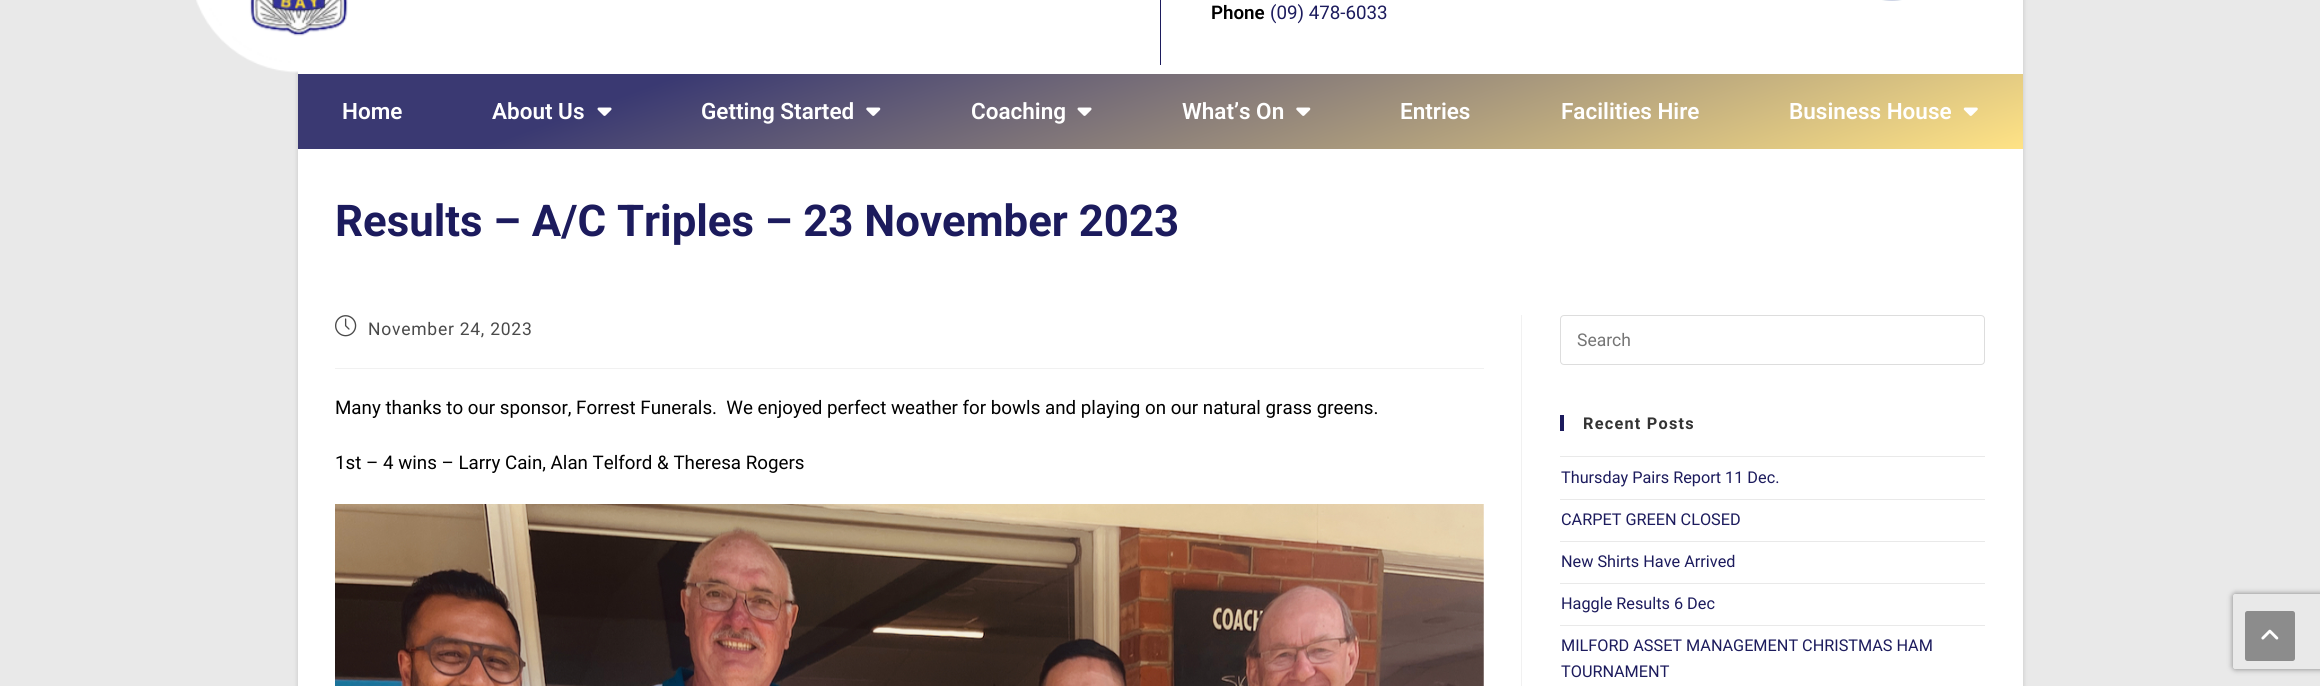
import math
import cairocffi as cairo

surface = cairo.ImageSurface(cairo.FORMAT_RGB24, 2320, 686)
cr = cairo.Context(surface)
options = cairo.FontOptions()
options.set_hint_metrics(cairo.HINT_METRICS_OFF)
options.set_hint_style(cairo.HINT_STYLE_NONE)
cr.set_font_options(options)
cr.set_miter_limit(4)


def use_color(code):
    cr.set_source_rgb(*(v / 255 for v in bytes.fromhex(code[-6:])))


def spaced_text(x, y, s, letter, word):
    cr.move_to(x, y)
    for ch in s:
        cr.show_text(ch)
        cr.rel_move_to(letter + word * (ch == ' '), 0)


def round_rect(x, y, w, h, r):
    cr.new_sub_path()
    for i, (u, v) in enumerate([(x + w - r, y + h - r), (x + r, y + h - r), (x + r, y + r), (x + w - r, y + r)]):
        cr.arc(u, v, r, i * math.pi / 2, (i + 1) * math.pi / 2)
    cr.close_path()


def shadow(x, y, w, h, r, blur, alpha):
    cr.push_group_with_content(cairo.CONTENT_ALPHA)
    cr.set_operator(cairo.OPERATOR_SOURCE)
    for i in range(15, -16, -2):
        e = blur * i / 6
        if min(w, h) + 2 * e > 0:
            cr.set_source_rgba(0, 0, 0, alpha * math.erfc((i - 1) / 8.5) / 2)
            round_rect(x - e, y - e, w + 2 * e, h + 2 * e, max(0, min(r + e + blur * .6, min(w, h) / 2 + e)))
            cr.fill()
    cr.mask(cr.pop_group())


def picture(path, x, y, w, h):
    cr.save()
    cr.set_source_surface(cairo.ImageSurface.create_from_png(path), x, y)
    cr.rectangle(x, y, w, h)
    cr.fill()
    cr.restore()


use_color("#e9e9e9")
cr.paint()
use_color("#000000")
shadow(298, -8, 1725, 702, 0, 2.5, 0.15)
use_color("#ffffff")
cr.rectangle(298, 0, 1725, 686)
cr.fill()
picture("img1.png", 196, 0, 152, 73)
picture("img2.png", 1882, 0, 20, 1)
use_color("#1c1b5d")
cr.rectangle(1160, 0, 1, 65)
cr.fill()
cr.select_font_face("Roboto SemiBold")
cr.set_font_size(18.75)
use_color("#000000")
cr.move_to(1211, 19)
cr.show_text("Phone")
cr.select_font_face("Roboto")
use_color("#1c1b5d")
cr.move_to(1270, 19)
cr.show_text("(09) 478-6033")
gradient = cairo.LinearGradient(1047, -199, 1273, 422)
gradient.add_color_stop_rgba(0.2, 0.227, 0.224, 0.447, 1)
gradient.add_color_stop_rgba(1, 1, 0.89, 0.522, 1)
cr.set_source(gradient)
cr.rectangle(298, 74, 1725, 75)
cr.fill()
cr.select_font_face("Roboto SemiBold")
cr.set_font_size(22.5)
use_color("#ffffff")
cr.move_to(342, 119)
cr.show_text("Home")
cr.move_to(492, 119)
cr.show_text("About Us")
picture("img3.png", 597, 107, 15, 9)
cr.move_to(701, 119)
cr.show_text("Getting Started")
picture("img4.png", 866, 107, 15, 9)
cr.move_to(971, 119)
cr.show_text("Coaching")
picture("img5.png", 1077, 107, 15, 9)
cr.move_to(1182, 119)
cr.show_text("What’s On")
picture("img6.png", 1296, 107, 15, 9)
cr.move_to(1400, 119)
cr.show_text("Entries")
cr.move_to(1561, 119)
cr.show_text("Facilities Hire")
cr.move_to(1789, 119)
cr.show_text("Business House")
picture("img7.png", 1963, 107, 15, 9)
cr.select_font_face("Roboto", cairo.FONT_SLANT_NORMAL, cairo.FONT_WEIGHT_BOLD)
cr.set_font_size(43.75)
use_color("#1c1b5d")
cr.move_to(335, 236)
cr.show_text("Results – A/C Triples – 23 November 2023")
use_color("#f1f1f1")
cr.rectangle(1521, 315, 1, 371)
cr.fill()
cr.rectangle(335, 368, 1149, 1)
cr.fill()
picture("img8.png", 335, 315, 22, 22)
cr.select_font_face("Roboto")
cr.set_font_size(17.5)
use_color("#4a4a4a")
spaced_text(368, 335, "November 24, 2023", 0.75, 0)
cr.set_font_size(18.75)
use_color("#000000")
cr.move_to(335, 414)
cr.show_text("Many thanks to our sponsor, Forrest Funerals.  We enjoyed perfect weather for bowls and playing on our natural grass greens.")
cr.move_to(335, 469)
cr.show_text("1st – 4 wins – Larry Cain, Alan Telford & Theresa Rogers")
picture("img9.png", 335, 504, 1149, 182)
round_rect(1560.5, 315.5, 424, 49, 3.5)
use_color("#dddddd")
cr.set_line_width(1)
cr.stroke()
cr.set_font_size(17.5)
use_color("#757575")
cr.move_to(1577, 346)
cr.show_text("Search")
use_color("#1c1b5d")
cr.rectangle(1560, 415, 4, 16)
cr.fill()
cr.select_font_face("Roboto", cairo.FONT_SLANT_NORMAL, cairo.FONT_WEIGHT_BOLD)
cr.set_font_size(16.25)
use_color("#333333")
spaced_text(1583, 429, "Recent Posts", 1.25, 0)
use_color("#e9e9e9")
cr.rectangle(1560, 456, 425, 1)
cr.fill()
cr.rectangle(1560, 499, 425, 1)
cr.fill()
cr.select_font_face("Roboto")
use_color("#1c1b5d")
cr.move_to(1561, 483)
cr.show_text("Thursday Pairs Report 11 Dec.")
use_color("#e9e9e9")
cr.rectangle(1560, 541, 425, 1)
cr.fill()
use_color("#1c1b5d")
cr.move_to(1561, 525)
cr.show_text("CARPET GREEN CLOSED")
use_color("#e9e9e9")
cr.rectangle(1560, 583, 425, 1)
cr.fill()
use_color("#1c1b5d")
cr.move_to(1561, 567)
cr.show_text("New Shirts Have Arrived")
use_color("#e9e9e9")
cr.rectangle(1560, 625, 425, 1)
cr.fill()
use_color("#1c1b5d")
cr.move_to(1561, 609)
cr.show_text("Haggle Results 6 Dec")
cr.move_to(1561, 651)
cr.show_text("MILFORD ASSET MANAGEMENT CHRISTMAS HAM")
cr.move_to(1561, 677)
cr.show_text("TOURNAMENT")
cr.save()
cr.set_fill_rule(cairo.FILL_RULE_EVEN_ODD)
cr.new_path()
cr.move_to(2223, 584)
cr.line_to(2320, 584)
cr.line_to(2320, 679)
cr.line_to(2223, 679)
cr.close_path()
cr.move_to(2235.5, 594)
cr.line_to(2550.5, 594)
cr.curve_to(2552, 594, 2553, 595, 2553, 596.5)
cr.line_to(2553, 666.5)
cr.curve_to(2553, 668, 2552, 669, 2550.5, 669)
cr.line_to(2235.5, 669)
cr.curve_to(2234, 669, 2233, 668, 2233, 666.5)
cr.line_to(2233, 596.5)
cr.curve_to(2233, 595, 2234, 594, 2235.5, 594)
cr.close_path()
cr.clip()
use_color("#808080")
shadow(2233, 594, 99, 75, 2.5, 3, 1)
cr.restore()
use_color("#8c8c8c")
round_rect(2245, 611, 50, 50, 2.5)
cr.fill()
picture("img10.png", 2261, 629, 18, 11)
surface.write_to_png("result.png")
